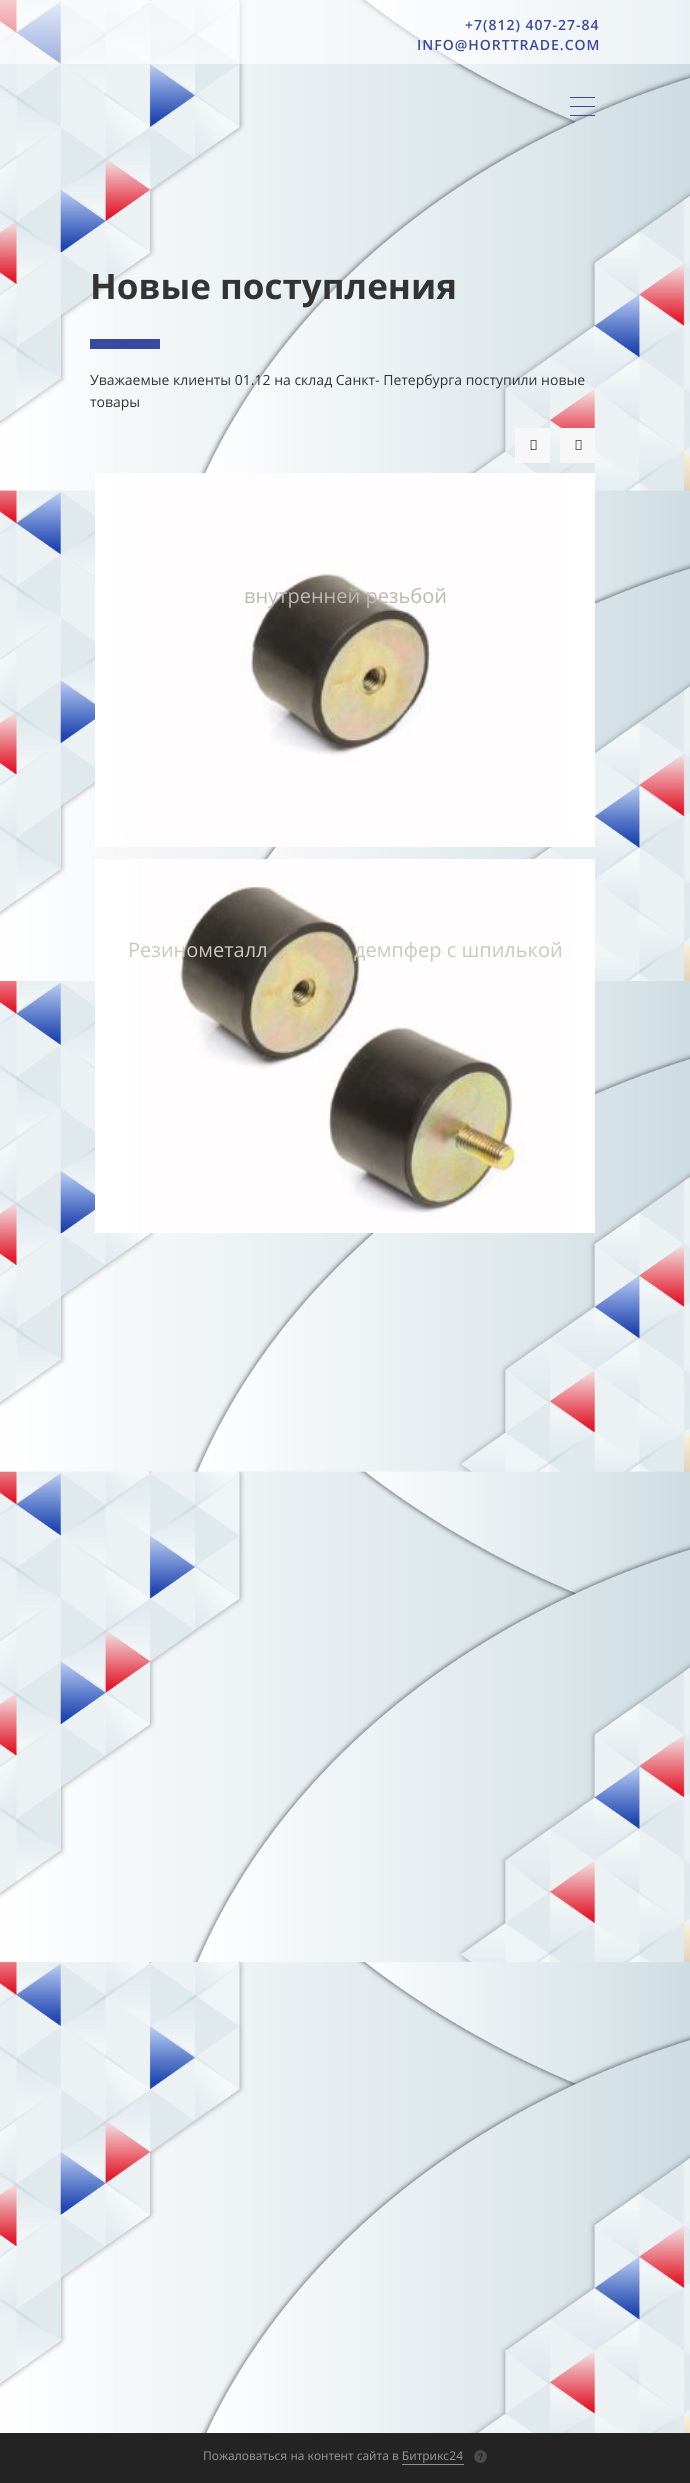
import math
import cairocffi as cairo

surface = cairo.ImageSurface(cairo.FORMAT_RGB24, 690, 2483)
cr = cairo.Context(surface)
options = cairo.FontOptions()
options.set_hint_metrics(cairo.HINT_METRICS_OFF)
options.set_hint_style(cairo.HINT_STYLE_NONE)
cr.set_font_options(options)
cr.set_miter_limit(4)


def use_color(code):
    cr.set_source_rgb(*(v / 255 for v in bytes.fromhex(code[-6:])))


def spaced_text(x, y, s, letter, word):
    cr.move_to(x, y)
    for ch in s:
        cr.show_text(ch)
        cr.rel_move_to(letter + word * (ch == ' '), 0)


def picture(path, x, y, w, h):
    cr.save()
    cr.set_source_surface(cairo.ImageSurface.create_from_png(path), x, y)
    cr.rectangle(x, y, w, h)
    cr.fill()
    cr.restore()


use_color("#ffffff")
cr.paint()
picture("img1.png", 0, 0, 690, 2433)
cr.set_source_rgba(1, 1, 1, 0.6)
cr.rectangle(0, 0, 690, 64)
cr.fill()
cr.select_font_face("Open Sans SemiBold")
cr.set_font_size(14)
use_color("#3949a0")
spaced_text(465, 30, "+7(812) 407-27-84", 1, 0)
spaced_text(417, 50, "INFO@HORTTRADE.COM", 1, 0)
cr.rectangle(570, 97, 25, 1)
cr.fill()
cr.rectangle(570, 106, 25, 1)
cr.fill()
cr.rectangle(570, 115, 25, 1)
cr.fill()
cr.select_font_face("Open Sans", cairo.FONT_SLANT_NORMAL, cairo.FONT_WEIGHT_BOLD)
cr.set_font_size(35)
use_color("#333333")
cr.move_to(90, 299)
cr.show_text("Новые поступления")
use_color("#3949a0")
cr.rectangle(90, 339, 70, 10)
cr.fill()
cr.select_font_face("Open Sans")
cr.set_font_size(14)
use_color("#333333")
cr.move_to(90, 385)
cr.show_text("Уважаемые клиенты 01.12 на склад Санкт- Петербурга поступили новые")
cr.move_to(90, 407)
cr.show_text("товары")
use_color("#f7f7f7")
cr.rectangle(515, 428, 35, 35)
cr.fill()
picture("img2.png", 530, 440, 7, 10)
cr.rectangle(560, 428, 35, 35)
cr.fill()
picture("img2.png", 575, 440, 7, 10)
picture("img3.png", 95, 473, 500, 374)
cr.set_font_size(20)
use_color("#bcb8b4")
cr.move_to(244, 603)
cr.show_text("внутренней резьбой")
picture("img4.png", 95, 859, 500, 374)
use_color("#ccc7c0")
cr.move_to(128, 957)
cr.show_text("Резинометалл")
cr.move_to(354, 957)
cr.show_text("демпфер с шпилькой")
use_color("#242424")
cr.rectangle(0, 2433, 690, 50)
cr.fill()
cr.select_font_face("Noto Sans")
cr.set_font_size(12)
use_color("#919191")
cr.move_to(203, 2460)
cr.show_text("Пожаловаться на контент cайта в Битрикс24")
cr.rectangle(402, 2464, 62, 1)
cr.fill()
picture("img5.png", 474, 2450, 13, 13)
surface.write_to_png("result.png")
